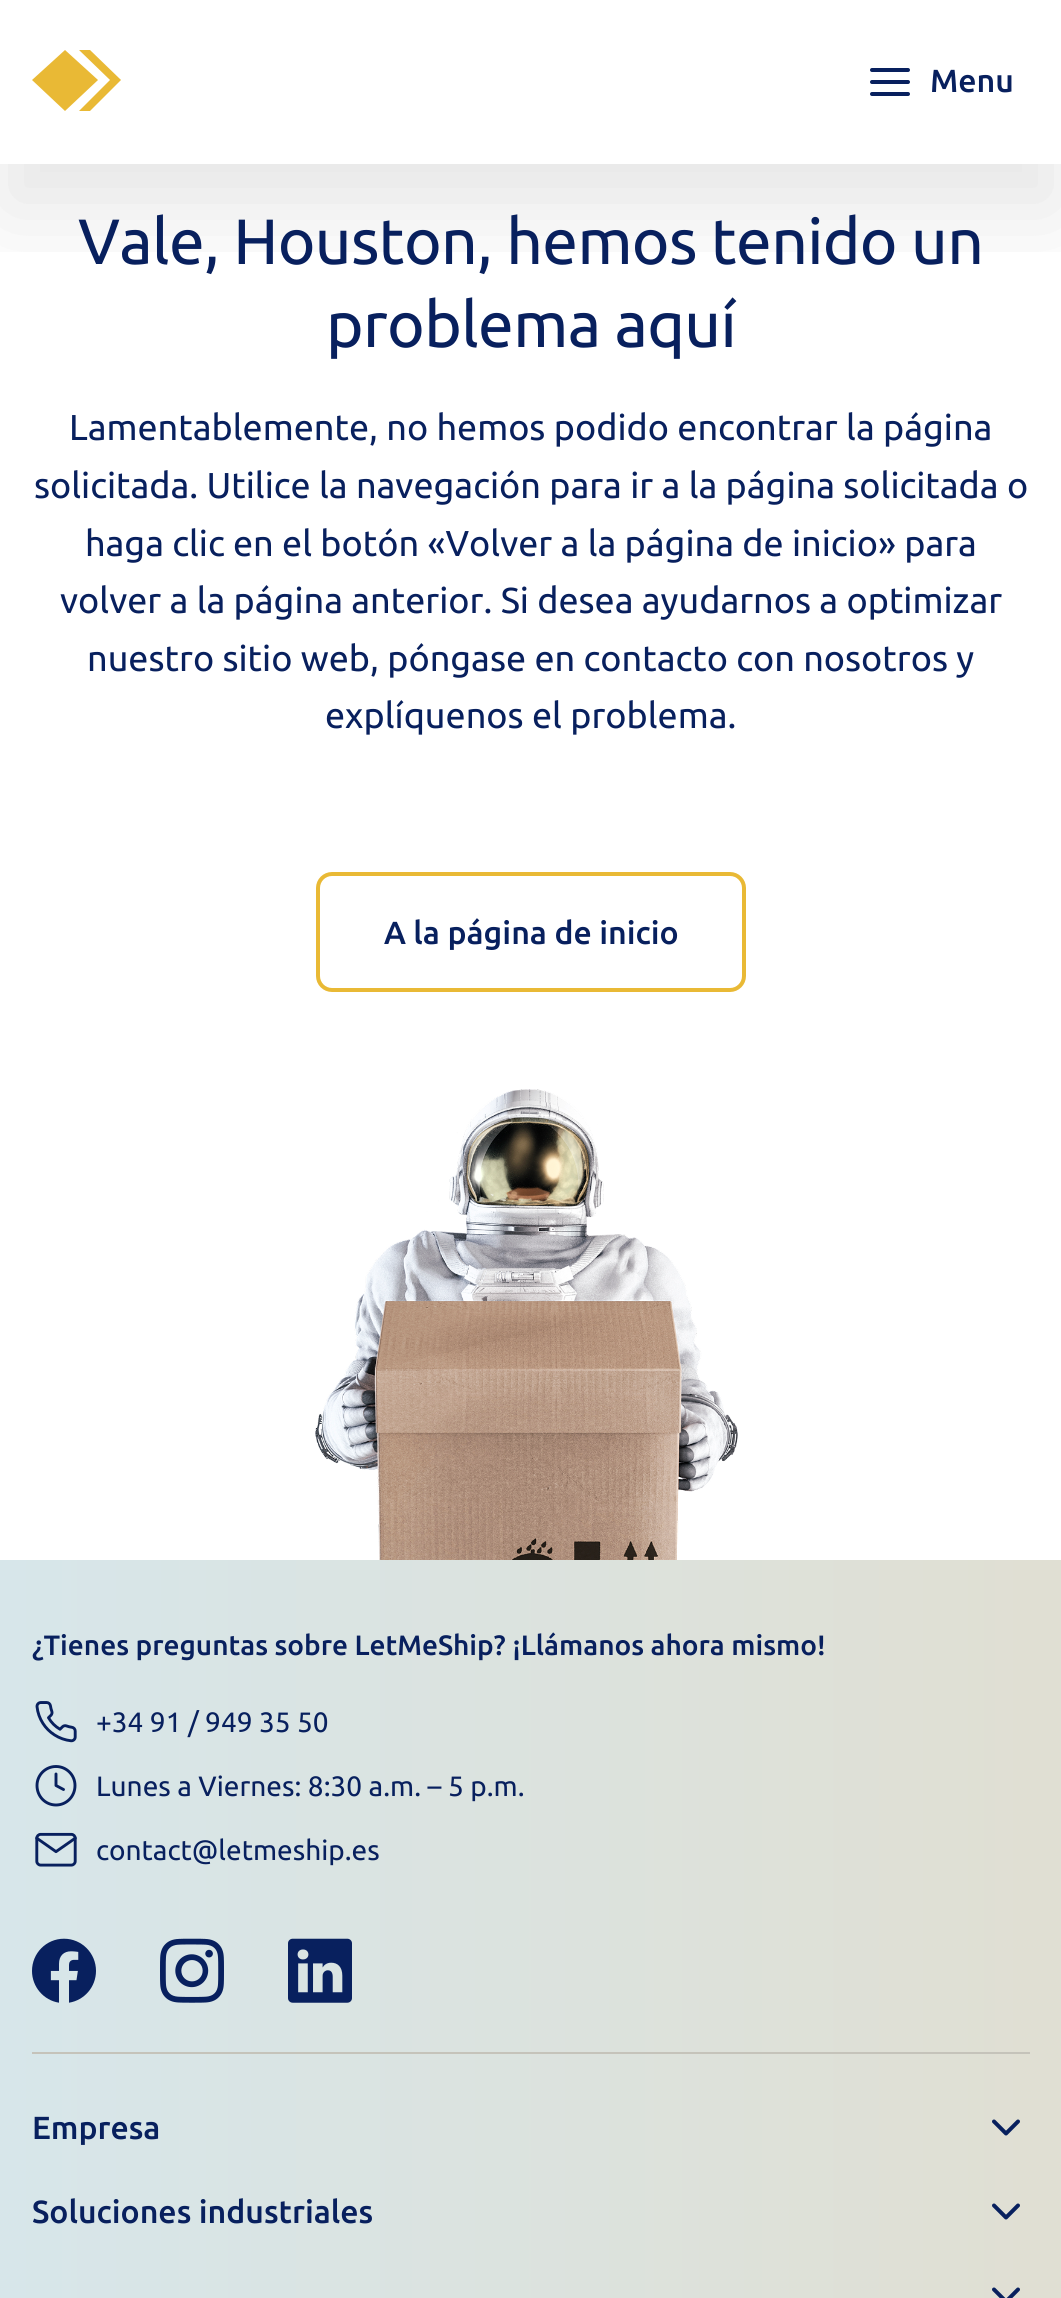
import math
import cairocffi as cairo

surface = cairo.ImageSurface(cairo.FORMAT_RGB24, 1061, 2298)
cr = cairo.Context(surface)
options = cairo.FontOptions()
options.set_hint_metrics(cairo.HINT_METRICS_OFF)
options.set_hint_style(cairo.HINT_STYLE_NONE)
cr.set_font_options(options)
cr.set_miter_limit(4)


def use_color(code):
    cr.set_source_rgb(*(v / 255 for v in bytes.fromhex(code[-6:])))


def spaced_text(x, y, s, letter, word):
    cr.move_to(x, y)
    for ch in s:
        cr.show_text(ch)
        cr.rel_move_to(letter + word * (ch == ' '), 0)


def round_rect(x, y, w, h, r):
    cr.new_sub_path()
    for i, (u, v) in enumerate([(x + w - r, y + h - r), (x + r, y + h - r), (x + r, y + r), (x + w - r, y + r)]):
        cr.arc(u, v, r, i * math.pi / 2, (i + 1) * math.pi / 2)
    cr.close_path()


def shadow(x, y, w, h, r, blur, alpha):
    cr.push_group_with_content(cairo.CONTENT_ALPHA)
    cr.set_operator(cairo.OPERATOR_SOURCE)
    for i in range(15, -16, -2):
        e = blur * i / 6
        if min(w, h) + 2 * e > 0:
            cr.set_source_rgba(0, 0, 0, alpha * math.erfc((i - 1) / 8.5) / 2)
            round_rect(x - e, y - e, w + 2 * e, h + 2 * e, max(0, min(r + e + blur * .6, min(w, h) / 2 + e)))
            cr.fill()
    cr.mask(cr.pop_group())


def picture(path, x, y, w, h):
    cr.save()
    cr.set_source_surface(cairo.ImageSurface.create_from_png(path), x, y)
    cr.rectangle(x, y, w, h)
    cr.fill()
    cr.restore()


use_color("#ffffff")
cr.paint()
cr.save()
cr.rectangle(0, 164, 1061, 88)
cr.clip()
use_color("#000000")
shadow(0, 48, 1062, 164, 0, 48, 0.1)
cr.restore()
use_color("#e9b935")
cr.new_path()
cr.move_to(65, 50)
cr.line_to(32, 80)
cr.line_to(65, 111)
cr.line_to(98, 80)
cr.close_path()
cr.fill()
cr.new_path()
cr.move_to(90, 50)
cr.line_to(79, 50)
cr.line_to(110, 80)
cr.line_to(79, 111)
cr.line_to(90, 111)
cr.line_to(121, 80)
cr.close_path()
cr.fill()
cr.new_path()
cr.move_to(872, 82)
cr.line_to(908, 82)
cr.move_to(872, 70)
cr.line_to(908, 70)
cr.move_to(872, 94)
cr.line_to(908, 94)
use_color("#08205e")
cr.set_line_width(4)
cr.set_line_cap(cairo.LINE_CAP_ROUND)
cr.set_line_join(cairo.LINE_JOIN_ROUND)
cr.stroke()
cr.select_font_face("Ubuntu Medium")
cr.set_font_size(32)
cr.move_to(930, 92)
cr.show_text("Menu")
cr.select_font_face("Ubuntu")
cr.set_font_size(64)
spaced_text(78, 264, "Vale, Houston, hemos tenido un", -0.65, 0)
spaced_text(326, 347, "problema aquí", -0.65, 0)
cr.set_font_size(36)
cr.move_to(69, 440)
cr.show_text("Lamentablemente, no hemos podido encontrar la página")
cr.move_to(34, 498)
cr.show_text("solicitada. Utilice la navegación para ir a la página solicitada o")
cr.move_to(85, 556)
cr.show_text("haga clic en el botón «Volver a la página de inicio» para")
cr.move_to(60, 613)
cr.show_text("volver a la página anterior. Si desea ayudarnos a optimizar")
cr.move_to(87, 671)
cr.show_text("nuestro sitio web, póngase en contacto con nosotros y")
cr.move_to(325, 728)
cr.show_text("explíquenos el problema.")
round_rect(318, 874, 426, 116, 14)
use_color("#e9b935")
cr.set_line_cap(cairo.LINE_CAP_BUTT)
cr.set_line_join(cairo.LINE_JOIN_MITER)
cr.stroke()
cr.select_font_face("Ubuntu Medium")
cr.set_font_size(32)
use_color("#08205e")
cr.move_to(384, 944)
cr.show_text("A la página de inicio")
picture("img1.png", 315, 1089, 423, 471)
gradient = cairo.LinearGradient(0, 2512, 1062, 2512)
gradient.add_color_stop_rgba(0, 0.843, 0.902, 0.918, 1)
gradient.add_color_stop_rgba(0.98, 0.878, 0.875, 0.827, 1)
cr.set_source(gradient)
cr.rectangle(0, 1560, 1061, 738)
cr.fill()
cr.set_font_size(28)
use_color("#08205e")
cr.move_to(32, 1655)
cr.show_text("¿Tienes preguntas sobre LetMeShip? ¡Llámanos ahora mismo!")
picture("img2.png", 35, 1701, 42, 42)
cr.select_font_face("Ubuntu")
cr.move_to(96, 1732)
cr.show_text("+34 91 / 949 35 50")
cr.new_path()
cr.move_to(56, 1805)
cr.curve_to(66.5, 1805, 75, 1796.5, 75, 1785.5)
cr.curve_to(75, 1775, 66.5, 1766.5, 56, 1766.5)
cr.curve_to(45.5, 1766.5, 37, 1775, 37, 1785.5)
cr.curve_to(37, 1796.5, 45.5, 1805, 56, 1805)
cr.close_path()
cr.move_to(56, 1774)
cr.line_to(56, 1785.5)
cr.line_to(63.5, 1789.5)
cr.set_line_width(2.9)
cr.set_line_cap(cairo.LINE_CAP_ROUND)
cr.set_line_join(cairo.LINE_JOIN_ROUND)
cr.stroke()
cr.move_to(96, 1796)
cr.show_text("Lunes a Viernes: 8:30 a.m. – 5 p.m.")
picture("img3.png", 35, 1832, 42, 35)
cr.move_to(96, 1860)
cr.show_text("contact@letmeship.es")
picture("img4.png", 32, 1938, 64, 65)
picture("img5.png", 160, 1938, 64, 65)
picture("img6.png", 288, 1938, 64, 65)
use_color("#c5c3ba")
cr.rectangle(32, 2052, 998, 2)
cr.fill()
cr.select_font_face("Ubuntu Medium")
cr.set_font_size(32)
use_color("#08205e")
cr.move_to(32, 2139)
cr.show_text("Empresa")
cr.new_path()
cr.move_to(994, 2121.5)
cr.line_to(1006, 2133.5)
cr.line_to(1018, 2121.5)
cr.set_line_width(4)
cr.stroke()
cr.move_to(32, 2223)
cr.show_text("Soluciones industriales")
cr.new_path()
cr.move_to(994, 2205.5)
cr.line_to(1006, 2217.5)
cr.line_to(1018, 2205.5)
cr.stroke()
cr.new_path()
cr.move_to(994, 2289.5)
cr.line_to(1006, 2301.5)
cr.line_to(1018, 2289.5)
cr.stroke()
surface.write_to_png("result.png")
